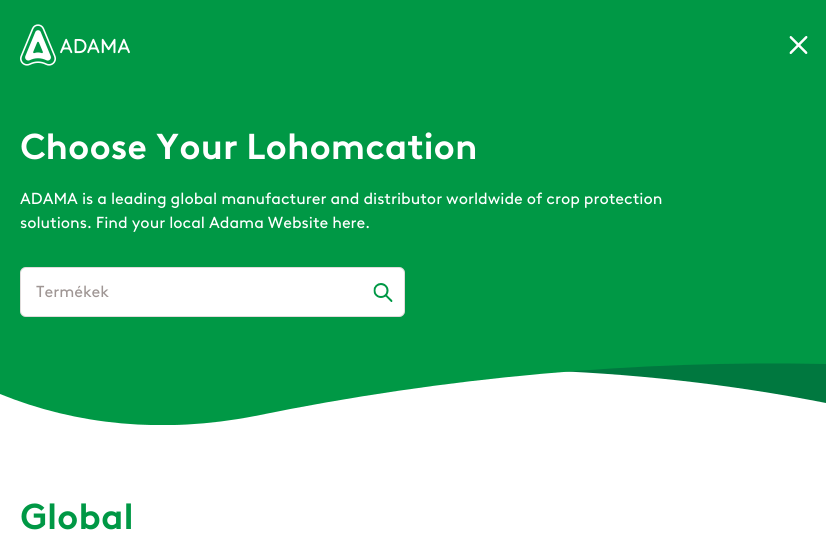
import math
import cairocffi as cairo

surface = cairo.ImageSurface(cairo.FORMAT_RGB24, 826, 538)
cr = cairo.Context(surface)
options = cairo.FontOptions()
options.set_hint_metrics(cairo.HINT_METRICS_OFF)
options.set_hint_style(cairo.HINT_STYLE_NONE)
cr.set_font_options(options)
cr.set_miter_limit(4)


def use_color(code):
    cr.set_source_rgb(*(v / 255 for v in bytes.fromhex(code[-6:])))


def round_rect(x, y, w, h, r):
    cr.new_sub_path()
    for i, (u, v) in enumerate([(x + w - r, y + h - r), (x + r, y + h - r), (x + r, y + r), (x + w - r, y + r)]):
        cr.arc(u, v, r, i * math.pi / 2, (i + 1) * math.pi / 2)
    cr.close_path()


def picture(path, x, y, w, h):
    cr.save()
    cr.set_source_surface(cairo.ImageSurface.create_from_png(path), x, y)
    cr.rectangle(x, y, w, h)
    cr.fill()
    cr.restore()


use_color("#ffffff")
cr.paint()
use_color("#009845")
cr.rectangle(0, 0, 826, 357)
cr.fill()
picture("img1.png", 20, 24, 110, 42)
picture("img2.png", 789, 36, 19, 18)
cr.select_font_face("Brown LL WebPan", cairo.FONT_SLANT_NORMAL, cairo.FONT_WEIGHT_BOLD)
cr.set_font_size(36)
use_color("#ffffff")
cr.move_to(20, 159)
cr.show_text("Choose Your Lohomcation")
cr.select_font_face("Brown LL WebPan")
cr.set_font_size(16)
cr.move_to(20, 204)
cr.show_text("ADAMA is a leading global manufacturer and distributor worldwide of crop protection")
cr.move_to(20, 228)
cr.show_text("solutions. Find your local Adama Website here.")
round_rect(20, 267, 385, 50, 6)
cr.fill()
picture("img3.png", 373, 283, 20, 19)
round_rect(20.5, 267.5, 384, 49, 5.5)
cr.set_source_rgba(0.592, 0.545, 0.529, 0.3)
cr.set_line_width(1)
cr.stroke()
use_color("#9f9694")
cr.move_to(36, 297)
cr.show_text("Termékek")
use_color("#00783f")
cr.new_path()
cr.move_to(529, 370)
cr.curve_to(630, 373, 729, 384, 826, 403)
cr.line_to(826, 361)
cr.curve_to(720, 361, 585, 366, 529, 370)
cr.close_path()
cr.fill()
cr.save()
cr.rectangle(0, 357, 826, 68)
cr.clip()
use_color("#009845")
cr.new_path()
cr.move_to(0, 357)
cr.line_to(0, 394)
cr.curve_to(76, 425, 163, 434, 255, 416)
cr.curve_to(445, 377, 637, 360, 826, 364)
cr.line_to(826, 357)
cr.close_path()
cr.fill()
cr.restore()
cr.select_font_face("Brown LL WebPan", cairo.FONT_SLANT_NORMAL, cairo.FONT_WEIGHT_BOLD)
cr.set_font_size(36)
use_color("#009845")
cr.move_to(20, 529)
cr.show_text("Global")
surface.write_to_png("result.png")
